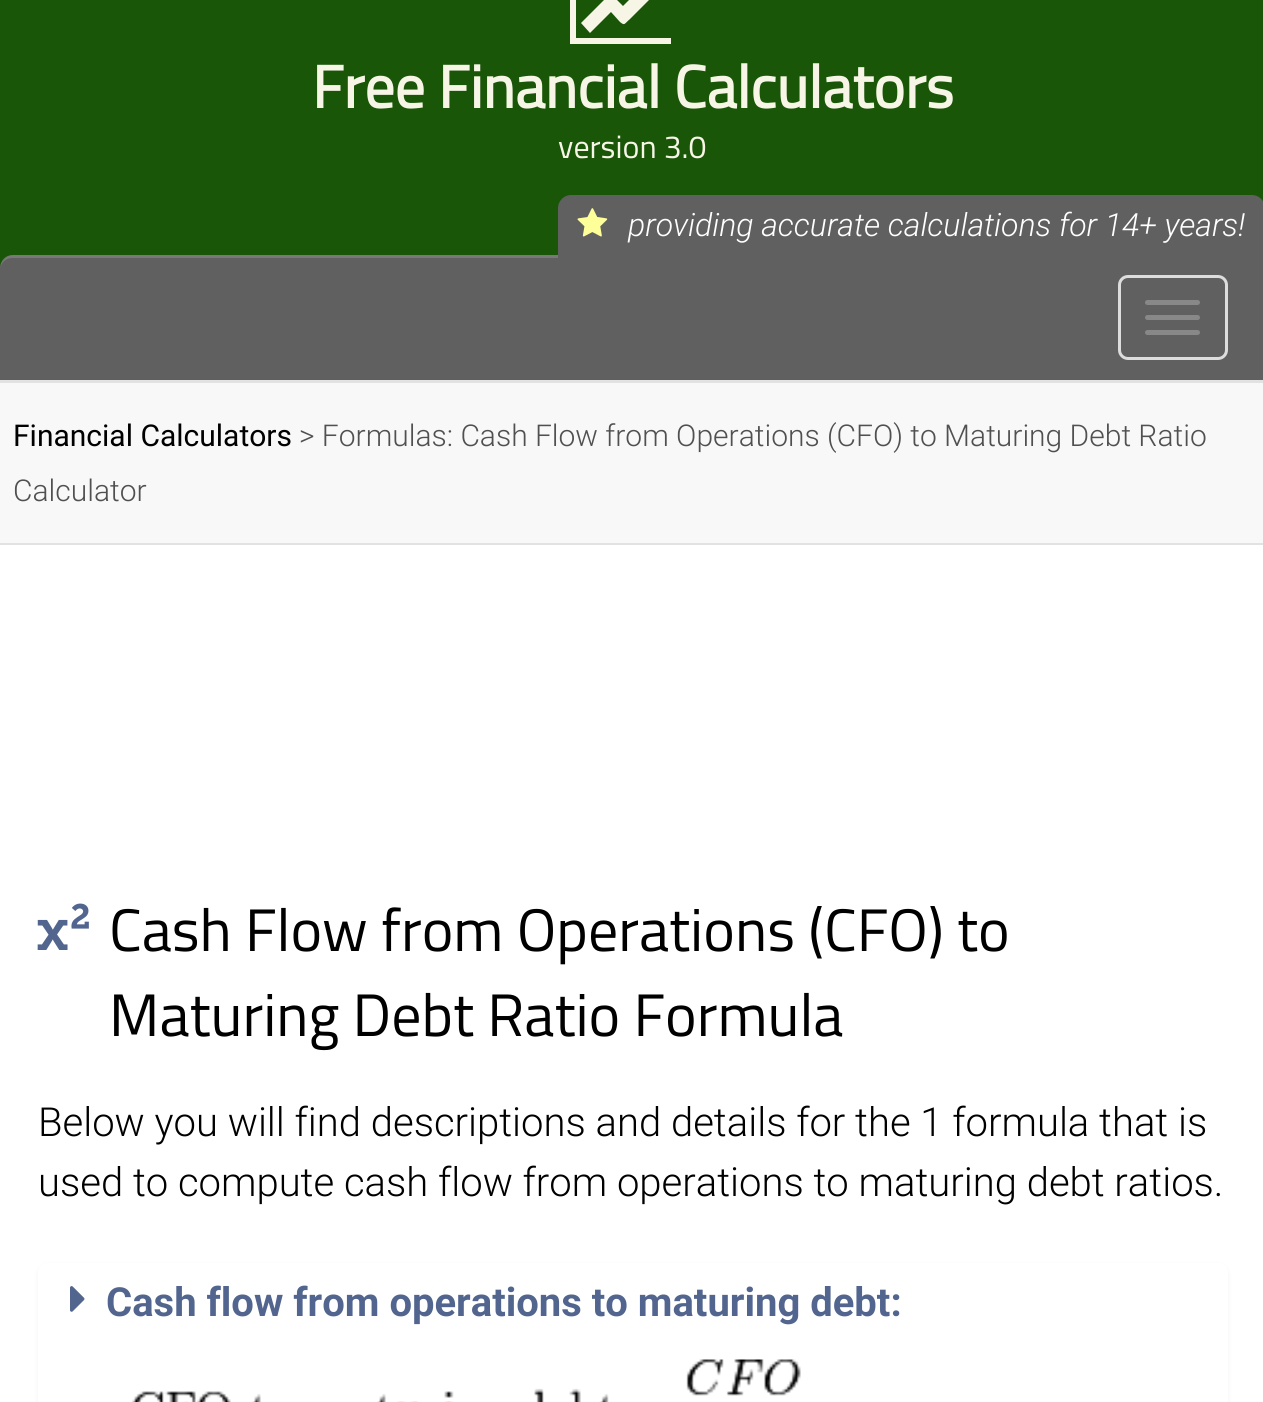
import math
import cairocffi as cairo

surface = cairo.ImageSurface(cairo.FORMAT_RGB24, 1263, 1402)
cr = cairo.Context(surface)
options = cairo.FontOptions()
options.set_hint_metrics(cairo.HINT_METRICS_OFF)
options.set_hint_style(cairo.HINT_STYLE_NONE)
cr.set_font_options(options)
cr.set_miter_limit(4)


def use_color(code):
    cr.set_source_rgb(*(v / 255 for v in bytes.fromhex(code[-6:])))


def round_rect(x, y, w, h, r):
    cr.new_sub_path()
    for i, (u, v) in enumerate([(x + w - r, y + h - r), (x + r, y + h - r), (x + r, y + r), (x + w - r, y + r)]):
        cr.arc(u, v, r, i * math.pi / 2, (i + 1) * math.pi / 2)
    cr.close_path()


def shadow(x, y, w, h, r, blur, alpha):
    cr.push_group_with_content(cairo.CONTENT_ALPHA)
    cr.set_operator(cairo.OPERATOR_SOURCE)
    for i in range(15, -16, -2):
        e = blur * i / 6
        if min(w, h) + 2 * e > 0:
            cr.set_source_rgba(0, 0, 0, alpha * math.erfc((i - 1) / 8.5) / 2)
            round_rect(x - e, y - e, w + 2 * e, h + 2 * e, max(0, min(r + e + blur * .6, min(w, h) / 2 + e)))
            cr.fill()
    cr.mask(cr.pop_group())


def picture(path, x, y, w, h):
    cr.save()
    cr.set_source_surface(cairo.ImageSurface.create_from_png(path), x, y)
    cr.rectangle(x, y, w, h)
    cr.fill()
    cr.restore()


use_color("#195608")
cr.paint()
use_color("#f7f5e6")
cr.new_path()
cr.move_to(671, 38)
cr.line_to(671, 44)
cr.line_to(570, 44)
cr.line_to(570, -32)
cr.line_to(576, -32)
cr.line_to(576, 38)
cr.close_path()
cr.move_to(664, -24)
cr.line_to(664, -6)
cr.curve_to(664, 4, 660, -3, 656, -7)
cr.line_to(630, 19)
cr.curve_to(624, 24, 625, 26, 620, 22)
cr.line_to(611, 12)
cr.line_to(590, 33)
cr.line_to(581, 23)
cr.line_to(605, -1)
cr.curve_to(610, -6, 610, -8, 614, -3)
cr.line_to(623, 6)
cr.line_to(646, -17)
cr.curve_to(642, -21, 635, -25, 645, -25)
cr.line_to(663, -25)
cr.curve_to(664, -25, 664, -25, 664, -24)
cr.close_path()
cr.fill()
cr.select_font_face("Titillium Web", cairo.FONT_SLANT_NORMAL, cairo.FONT_WEIGHT_BOLD)
cr.set_font_size(60)
cr.move_to(312, 108)
cr.show_text("Free Financial Calculators")
cr.select_font_face("Titillium Web")
cr.set_font_size(32)
cr.move_to(558, 158)
cr.show_text("version 3.0")
use_color("#606060")
cr.new_path()
cr.move_to(13, 255)
cr.line_to(1252, 255)
cr.curve_to(1259, 255, 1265, 261, 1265, 268)
cr.line_to(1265, 380)
cr.line_to(0, 380)
cr.line_to(0, 268)
cr.curve_to(0, 261, 6, 255, 13, 255)
cr.close_path()
cr.fill()
cr.set_source_rgba(1, 1, 1, 0.15)
cr.new_path()
cr.move_to(12, 258)
cr.line_to(1252, 258)
cr.curve_to(1259, 258, 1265, 263, 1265, 270)
cr.curve_to(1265, 262, 1261, 255, 1252, 255)
cr.line_to(13, 255)
cr.curve_to(4, 255, 0, 262, 0, 270)
cr.curve_to(0, 263, 6, 258, 12, 258)
cr.close_path()
cr.fill()
use_color("#606060")
cr.new_path()
cr.move_to(571, 195)
cr.line_to(1252, 195)
cr.curve_to(1259, 195, 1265, 201, 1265, 208)
cr.line_to(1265, 268)
cr.line_to(558, 268)
cr.line_to(558, 208)
cr.curve_to(558, 201, 564, 195, 571, 195)
cr.close_path()
cr.fill()
picture("img1.png", 577, 208, 31, 29)
cr.select_font_face("Roboto Light", cairo.FONT_SLANT_ITALIC)
use_color("#ffffff")
cr.move_to(628, 236)
cr.show_text("providing accurate calculations for 14+ years!")
round_rect(1119.5, 276.5, 107, 82, 8.5)
use_color("#dddddd")
cr.set_line_width(3)
cr.stroke()
use_color("#888888")
round_rect(1145, 300, 55, 5, 2.5)
cr.fill()
round_rect(1145, 315, 55, 5, 2.5)
cr.fill()
round_rect(1145, 330, 55, 5, 2.5)
cr.fill()
use_color("#f8f8f8")
cr.rectangle(0, 383, 1263, 160)
cr.fill()
use_color("#e2e2e2")
cr.rectangle(0, 380, 1263, 3)
cr.fill()
cr.rectangle(0, 543, 1263, 2)
cr.fill()
cr.select_font_face("Roboto")
cr.set_font_size(30)
use_color("#000000")
cr.move_to(13, 446)
cr.show_text("Financial Calculators")
cr.select_font_face("Roboto Light")
use_color("#505050")
cr.move_to(299, 446)
cr.show_text("> Formulas: Cash Flow from Operations (CFO) to Maturing Debt Ratio")
cr.move_to(13, 501)
cr.show_text("Calculator")
use_color("#ffffff")
cr.rectangle(0, 545, 1263, 857)
cr.fill()
picture("img2.png", 37, 903, 52, 47)
cr.select_font_face("Titillium Web")
cr.set_font_size(60)
use_color("#000000")
cr.move_to(109, 951)
cr.show_text("Cash Flow from Operations (CFO) to")
cr.move_to(109, 1036)
cr.show_text("Maturing Debt Ratio Formula")
cr.select_font_face("Roboto Light")
cr.set_font_size(40)
cr.move_to(38, 1136)
cr.show_text("Below you will find descriptions and details for the 1 formula that is")
cr.move_to(38, 1196)
cr.show_text("used to compute cash flow from operations to maturing debt ratios.")
use_color("#000000")
shadow(38, 1265, 1190, 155, 10, 2.5, 0.05)
use_color("#ffffff")
round_rect(38, 1263, 1190, 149, 10)
cr.fill()
picture("img3.png", 70, 1286, 15, 26)
cr.select_font_face("Roboto", cairo.FONT_SLANT_NORMAL, cairo.FONT_WEIGHT_BOLD)
use_color("#52658f")
cr.move_to(106, 1316)
cr.show_text("Cash flow from operations to maturing debt:")
picture("img4.png", 132, 1359, 669, 43)
surface.write_to_png("result.png")
